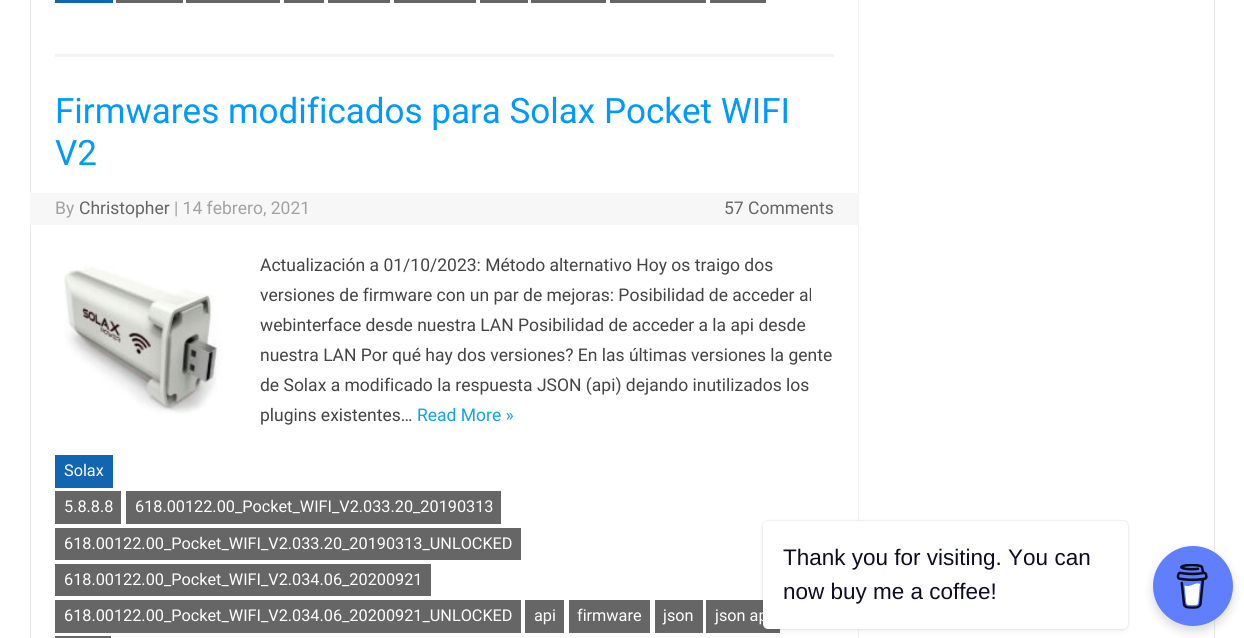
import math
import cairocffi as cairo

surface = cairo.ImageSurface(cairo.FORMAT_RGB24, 1244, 638)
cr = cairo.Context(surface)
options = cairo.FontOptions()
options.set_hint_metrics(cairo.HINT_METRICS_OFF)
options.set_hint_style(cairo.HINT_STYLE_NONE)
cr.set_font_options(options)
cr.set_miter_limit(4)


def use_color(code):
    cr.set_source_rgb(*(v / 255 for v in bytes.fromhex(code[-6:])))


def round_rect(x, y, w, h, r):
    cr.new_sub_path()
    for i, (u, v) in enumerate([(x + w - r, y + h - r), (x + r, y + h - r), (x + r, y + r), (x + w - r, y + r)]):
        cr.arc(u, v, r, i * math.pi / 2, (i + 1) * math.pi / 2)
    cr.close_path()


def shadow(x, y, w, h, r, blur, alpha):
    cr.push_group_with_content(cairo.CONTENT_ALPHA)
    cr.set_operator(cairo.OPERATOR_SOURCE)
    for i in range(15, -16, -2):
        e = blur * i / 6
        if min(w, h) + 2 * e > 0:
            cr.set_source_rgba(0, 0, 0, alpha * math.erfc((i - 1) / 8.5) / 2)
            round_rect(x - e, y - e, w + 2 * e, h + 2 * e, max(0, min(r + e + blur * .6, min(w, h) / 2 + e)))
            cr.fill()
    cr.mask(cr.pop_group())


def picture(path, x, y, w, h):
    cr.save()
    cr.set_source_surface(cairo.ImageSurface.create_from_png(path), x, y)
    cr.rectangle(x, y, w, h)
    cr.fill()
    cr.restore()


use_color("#ffffff")
cr.paint()
cr.rectangle(30.5, -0.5, 1184, 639)
use_color("#e9e9e9")
cr.set_line_width(1)
cr.stroke()
use_color("#f1f1f1")
cr.rectangle(858, 0, 1, 638)
cr.fill()
use_color("#f3f3f3")
cr.rectangle(55, 54, 779, 3)
cr.fill()
use_color("#1166b1")
cr.rectangle(55, 0, 58, 3)
cr.fill()
use_color("#666666")
cr.rectangle(116, 0, 67, 3)
cr.fill()
cr.rectangle(186, 0, 94, 3)
cr.fill()
cr.rectangle(284, 0, 40, 3)
cr.fill()
cr.rectangle(328, 0, 62, 3)
cr.fill()
cr.rectangle(394, 0, 82, 3)
cr.fill()
cr.rectangle(480, 0, 48, 3)
cr.fill()
cr.rectangle(531, 0, 75, 3)
cr.fill()
cr.rectangle(610, 0, 96, 3)
cr.fill()
cr.rectangle(710, 0, 56, 3)
cr.fill()
cr.select_font_face("Roboto")
cr.set_font_size(35)
use_color("#0099ff")
cr.move_to(55, 123)
cr.show_text("Firmwares modificados para Solax Pocket WIFI")
cr.move_to(55, 165)
cr.show_text("V2")
use_color("#f7f7f7")
cr.rectangle(30, 193, 829, 32)
cr.fill()
cr.set_font_size(17.5)
use_color("#a2a2a2")
cr.move_to(55, 214)
cr.show_text("By")
use_color("#666666")
cr.move_to(79, 214)
cr.show_text("Christopher")
use_color("#a2a2a2")
cr.move_to(174, 214)
cr.show_text("| 14 febrero, 2021")
use_color("#666666")
cr.move_to(724, 214)
cr.show_text("57 Comments")
picture("img1.png", 64, 266, 158, 148)
use_color("#444444")
cr.move_to(260, 271)
cr.show_text("Actualización a 01/10/2023: Método alternativo Hoy os traigo dos")
cr.move_to(260, 301)
cr.show_text("versiones de firmware con un par de mejoras: Posibilidad de acceder al")
cr.move_to(260, 331)
cr.show_text("webinterface desde nuestra LAN Posibilidad de acceder a la api desde")
cr.move_to(260, 361)
cr.show_text("nuestra LAN Por qué hay dos versiones? En las últimas versiones la gente")
cr.move_to(260, 391)
cr.show_text("de Solax a modificado la respuesta JSON (api) dejando inutilizados los")
cr.move_to(260, 421)
cr.show_text("plugins existentes…")
use_color("#16a1e7")
cr.move_to(417, 421)
cr.show_text("Read More »")
use_color("#1166b1")
cr.rectangle(55, 455, 58, 33)
cr.fill()
cr.set_font_size(16.25)
use_color("#ffffff")
cr.move_to(64, 476)
cr.show_text("Solax")
use_color("#666666")
cr.rectangle(55, 491, 66, 33)
cr.fill()
use_color("#ffffff")
cr.move_to(64, 512)
cr.show_text("5.8.8.8")
use_color("#666666")
cr.rectangle(126, 491, 375, 33)
cr.fill()
use_color("#ffffff")
cr.move_to(135, 512)
cr.show_text("618.00122.00_Pocket_WIFI_V2.033.20_20190313")
use_color("#666666")
cr.rectangle(55, 528, 466, 32)
cr.fill()
use_color("#ffffff")
cr.move_to(64, 549)
cr.show_text("618.00122.00_Pocket_WIFI_V2.033.20_20190313_UNLOCKED")
use_color("#666666")
cr.rectangle(55, 564, 376, 32)
cr.fill()
use_color("#ffffff")
cr.move_to(64, 585)
cr.show_text("618.00122.00_Pocket_WIFI_V2.034.06_20200921")
use_color("#666666")
cr.rectangle(55, 600, 466, 33)
cr.fill()
use_color("#ffffff")
cr.move_to(64, 621)
cr.show_text("618.00122.00_Pocket_WIFI_V2.034.06_20200921_UNLOCKED")
use_color("#666666")
cr.rectangle(525, 600, 39, 33)
cr.fill()
use_color("#ffffff")
cr.move_to(534, 621)
cr.show_text("api")
use_color("#666666")
cr.rectangle(569, 600, 81, 33)
cr.fill()
use_color("#ffffff")
cr.move_to(577, 621)
cr.show_text("firmware")
use_color("#666666")
cr.rectangle(655, 600, 48, 33)
cr.fill()
use_color("#ffffff")
cr.move_to(663, 621)
cr.show_text("json")
use_color("#666666")
cr.rectangle(706, 600, 74, 33)
cr.fill()
use_color("#ffffff")
cr.move_to(715, 621)
cr.show_text("json ap")
use_color("#666666")
cr.rectangle(55, 636, 56, 2)
cr.fill()
use_color("#000000")
shadow(763, 521, 365, 108, 5, 1, 0.15)
shadow(763, 524, 365, 107, 5, 3, 0.05)
use_color("#ffffff")
round_rect(763, 521, 365, 108, 5)
cr.fill()
cr.select_font_face("Liberation Sans")
cr.set_font_size(22.5)
use_color("#0d0c22")
cr.move_to(783, 565)
cr.show_text("Thank you for visiting. You can")
cr.move_to(783, 599)
cr.show_text("now buy me a coffee!")
use_color("#000000")
shadow(1153, 551, 80, 80, 40, 5, 0.15)
use_color("#5f7fff")
cr.arc(1193, 586, 40, 0, 2 * math.pi)
cr.fill()
picture("img2.png", 1176, 564, 32, 45)
surface.write_to_png("result.png")
